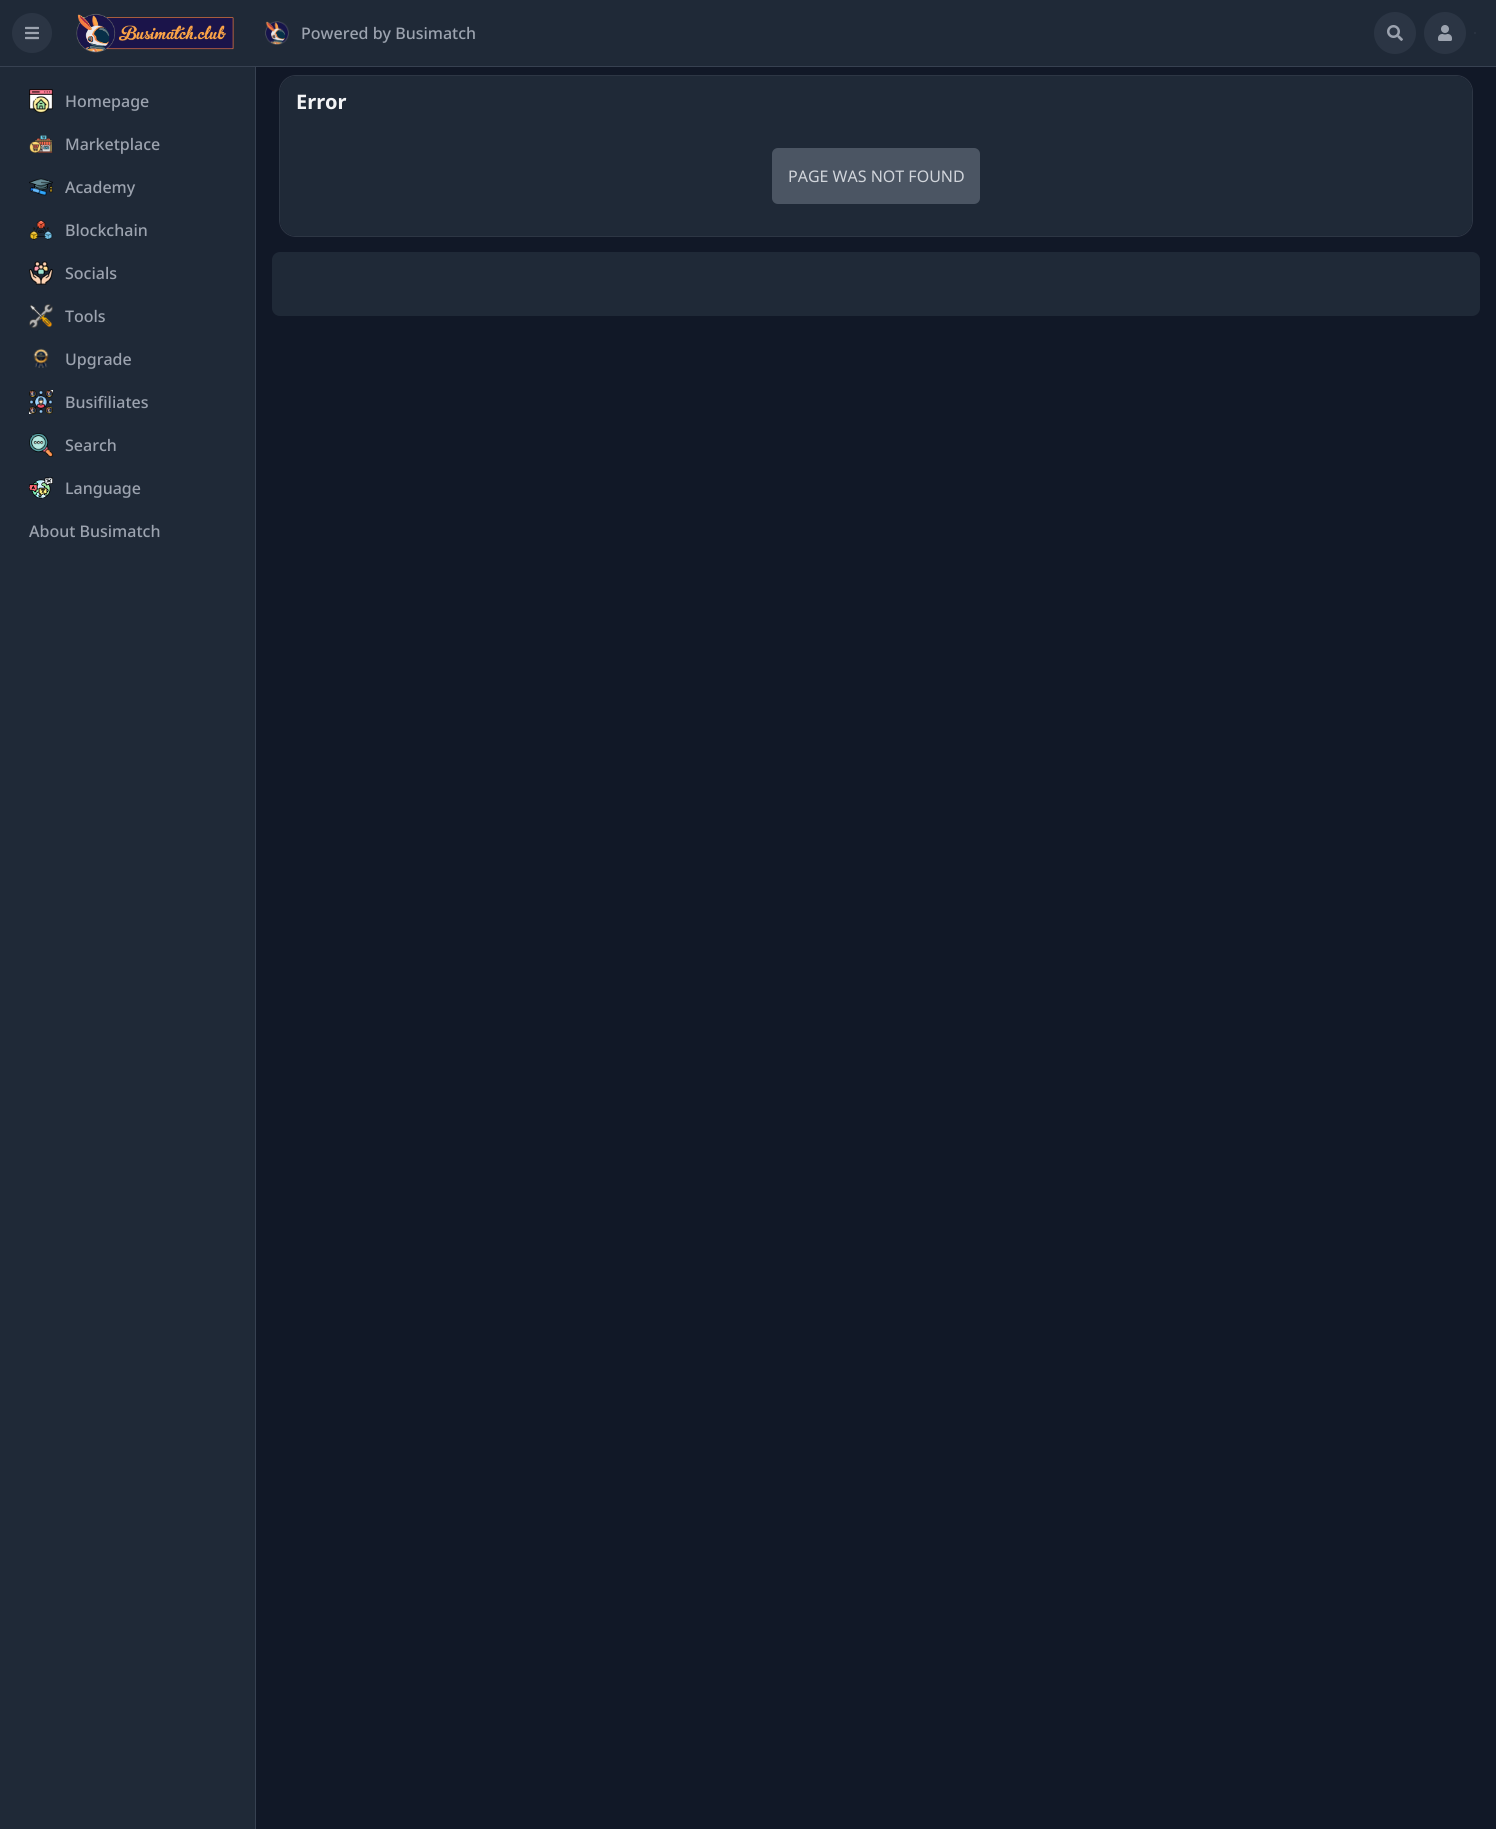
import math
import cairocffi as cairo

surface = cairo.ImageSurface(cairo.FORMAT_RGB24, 1496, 1829)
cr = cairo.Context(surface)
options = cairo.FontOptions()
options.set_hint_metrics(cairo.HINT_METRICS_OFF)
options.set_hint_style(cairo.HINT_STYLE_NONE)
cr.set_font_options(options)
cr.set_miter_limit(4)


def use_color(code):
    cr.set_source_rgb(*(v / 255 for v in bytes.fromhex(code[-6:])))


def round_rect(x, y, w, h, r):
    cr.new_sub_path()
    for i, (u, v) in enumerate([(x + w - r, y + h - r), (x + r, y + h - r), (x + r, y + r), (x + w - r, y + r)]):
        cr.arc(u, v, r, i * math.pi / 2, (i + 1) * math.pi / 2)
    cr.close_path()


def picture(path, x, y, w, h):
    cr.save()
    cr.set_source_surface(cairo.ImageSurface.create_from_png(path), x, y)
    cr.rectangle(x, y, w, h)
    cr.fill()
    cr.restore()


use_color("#111827")
cr.paint()
use_color("#374151")
cr.rectangle(255, 64, 1, 1765)
cr.fill()
use_color("#1f2937")
cr.rectangle(0, 0, 1496, 66)
cr.fill()
use_color("#374151")
cr.rectangle(0, 66, 1496, 1)
cr.fill()
use_color("#2b3544")
cr.arc(32, 33, 20, 0, 2 * math.pi)
cr.fill()
picture("img1.png", 25, 26, 14, 14)
picture("img2.png", 76, 13, 158, 40)
picture("img3.png", 265, 21, 24, 24)
cr.select_font_face("Noto Sans Medium")
cr.set_font_size(16)
use_color("#9ca3af")
cr.move_to(301, 39)
cr.show_text("Powered by Busimatch")
use_color("#2b3544")
cr.new_path()
cr.arc(1395, 33, 21, 0, 2 * math.pi)
cr.fill()
picture("img4.png", 1387, 25, 16, 16)
cr.arc(1445, 33, 21, 0, 2 * math.pi)
cr.fill()
picture("img5.png", 1438, 25, 14, 16)
cr.arc(1475, 33, 1, 0, 2 * math.pi)
cr.fill()
use_color("#1f2937")
cr.rectangle(0, 67, 255, 1762)
cr.fill()
picture("img6.png", 29, 89, 24, 24)
use_color("#9ca3af")
cr.move_to(65, 107)
cr.show_text("Homepage")
picture("img7.png", 29, 135, 24, 18)
cr.move_to(65, 150)
cr.show_text("Marketplace")
picture("img8.png", 29, 178, 24, 18)
cr.move_to(65, 193)
cr.show_text("Academy")
picture("img9.png", 29, 220, 24, 20)
cr.move_to(65, 236)
cr.show_text("Blockchain")
picture("img10.png", 29, 261, 24, 24)
cr.move_to(65, 279)
cr.show_text("Socials")
picture("img11.png", 29, 304, 24, 24)
cr.move_to(65, 322)
cr.show_text("Tools")
picture("img12.png", 33, 348, 16, 20)
cr.move_to(65, 365)
cr.show_text("Upgrade")
picture("img13.png", 29, 390, 24, 24)
cr.move_to(65, 408)
cr.show_text("Busifiliates")
picture("img14.png", 29, 433, 24, 24)
cr.move_to(65, 451)
cr.show_text("Search")
picture("img15.png", 29, 477, 24, 22)
cr.move_to(65, 494)
cr.show_text("Language")
cr.move_to(29, 537)
cr.show_text("About Busimatch")
round_rect(279.5, 75.5, 1193, 161, 16.5)
cr.set_source_rgba(0.294, 0.333, 0.388, 0.5)
cr.set_line_width(1)
cr.stroke()
use_color("#1f2937")
round_rect(280, 76, 1192, 160, 16)
cr.fill()
cr.select_font_face("Noto Sans", cairo.FONT_SLANT_NORMAL, cairo.FONT_WEIGHT_BOLD)
cr.set_font_size(20)
use_color("#f3f4f6")
cr.move_to(296, 109)
cr.show_text("Error")
use_color("#4b5563")
round_rect(772, 148, 208, 56, 6)
cr.fill()
cr.select_font_face("Noto Sans")
cr.set_font_size(16)
use_color("#d1d5db")
cr.move_to(788, 182)
cr.show_text("PAGE WAS NOT FOUND")
use_color("#1f2937")
round_rect(272, 252, 1208, 64, 8)
cr.fill()
surface.write_to_png("result.png")
